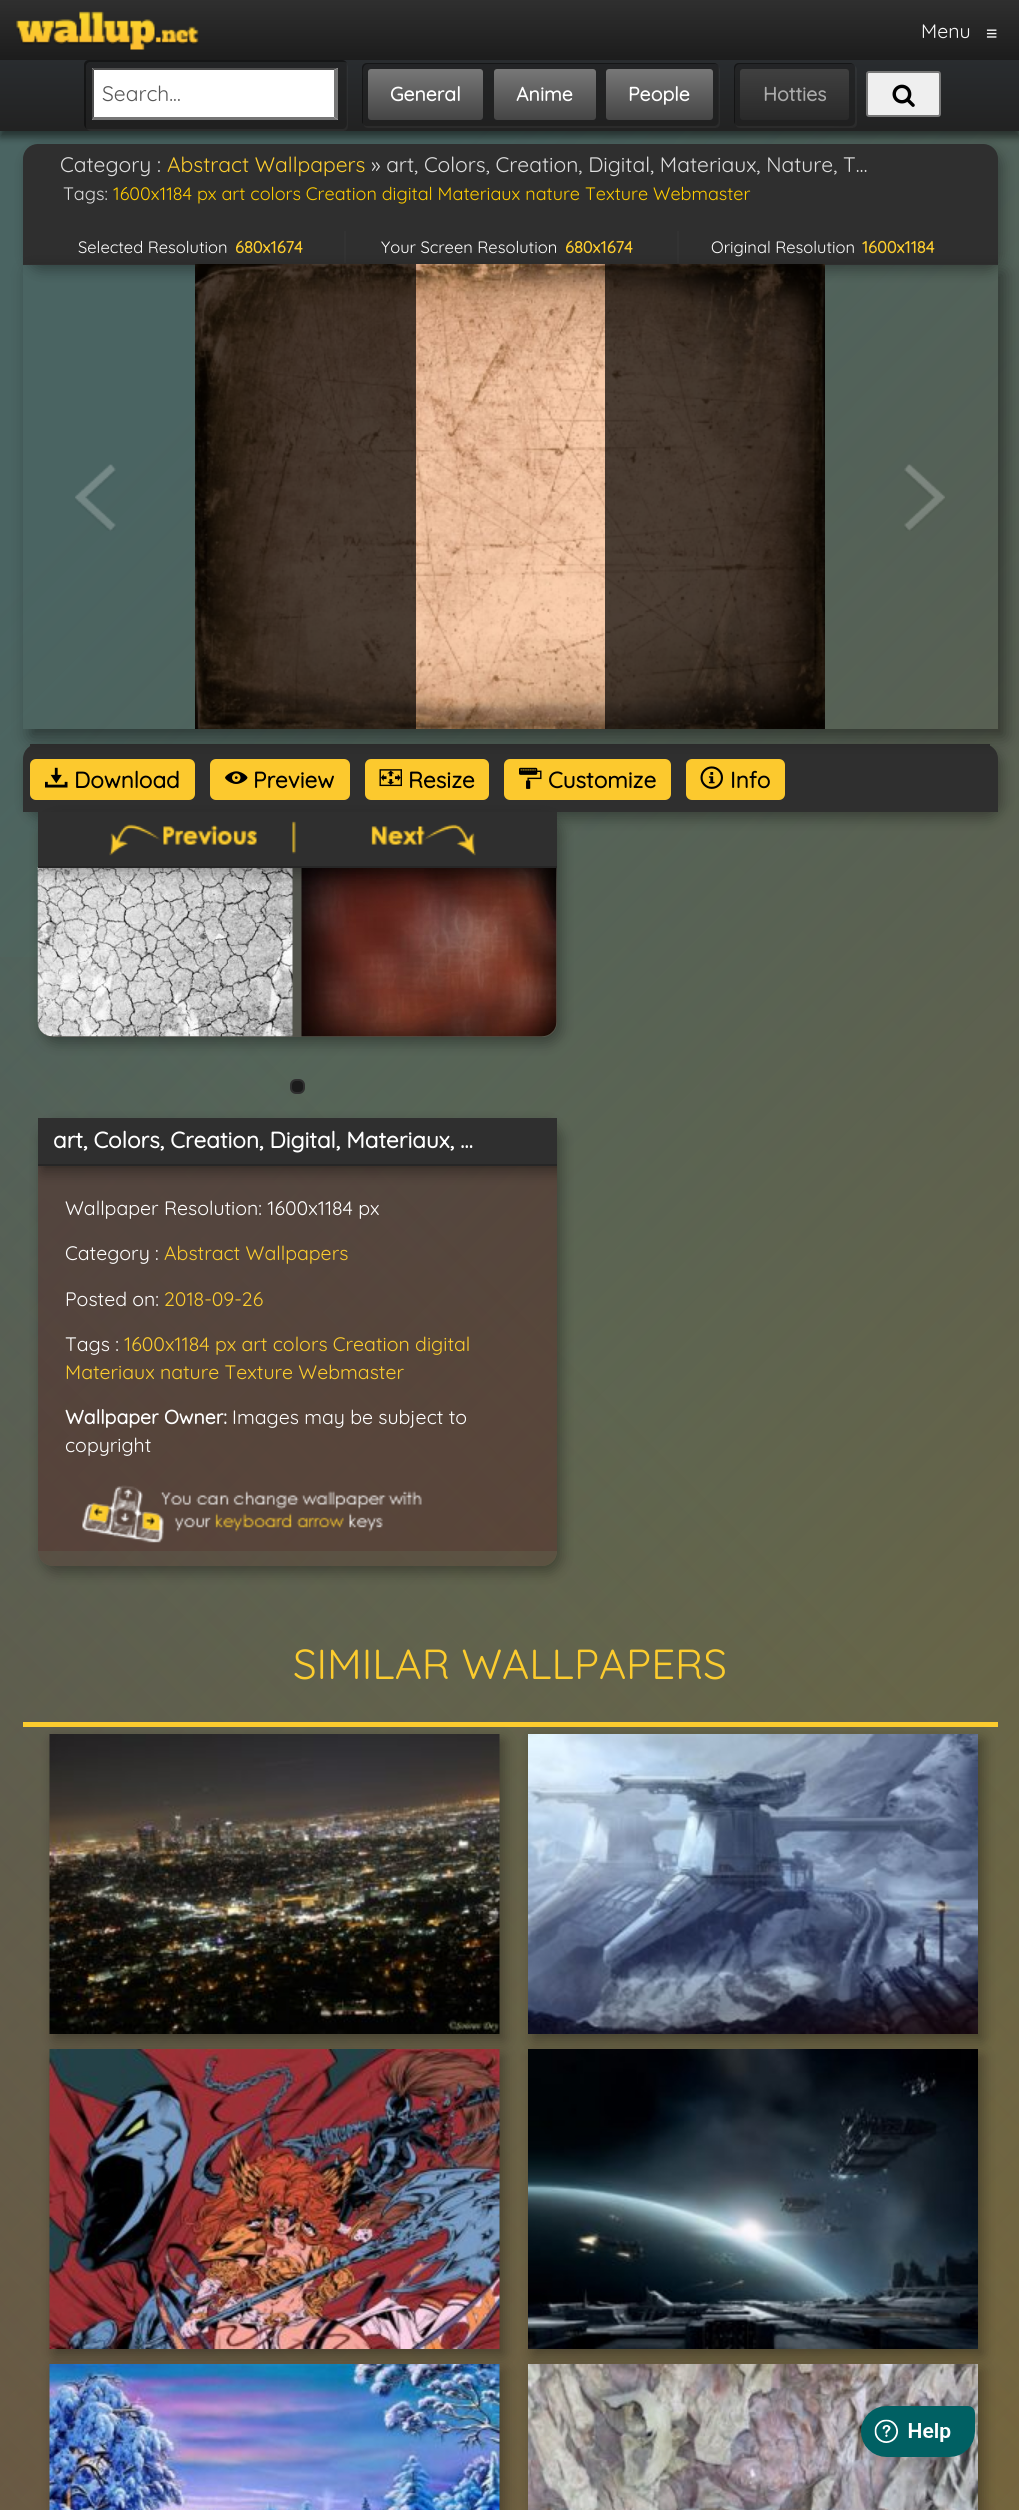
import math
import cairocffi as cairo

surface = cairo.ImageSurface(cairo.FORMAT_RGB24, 1019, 2510)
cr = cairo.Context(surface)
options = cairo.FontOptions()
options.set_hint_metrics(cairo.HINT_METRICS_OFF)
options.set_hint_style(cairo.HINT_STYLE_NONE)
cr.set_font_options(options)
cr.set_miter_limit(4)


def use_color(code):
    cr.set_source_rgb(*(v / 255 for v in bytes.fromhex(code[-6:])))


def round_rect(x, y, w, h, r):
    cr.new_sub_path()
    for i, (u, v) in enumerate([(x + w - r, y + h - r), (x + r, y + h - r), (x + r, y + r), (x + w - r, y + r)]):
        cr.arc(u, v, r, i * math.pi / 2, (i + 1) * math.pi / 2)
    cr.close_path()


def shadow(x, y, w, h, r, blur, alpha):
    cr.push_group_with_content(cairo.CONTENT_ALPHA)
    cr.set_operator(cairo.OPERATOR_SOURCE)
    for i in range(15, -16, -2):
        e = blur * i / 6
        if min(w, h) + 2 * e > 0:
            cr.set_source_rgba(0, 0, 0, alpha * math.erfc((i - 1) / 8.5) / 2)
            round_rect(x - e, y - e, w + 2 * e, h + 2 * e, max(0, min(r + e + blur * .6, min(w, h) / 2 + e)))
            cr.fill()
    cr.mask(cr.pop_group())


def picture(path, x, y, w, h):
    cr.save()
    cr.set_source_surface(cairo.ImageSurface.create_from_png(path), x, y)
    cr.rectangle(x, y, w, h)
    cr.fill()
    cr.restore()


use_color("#ffffff")
cr.paint()
gradient = cairo.LinearGradient(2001, 981, -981, 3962)
gradient.add_color_stop_rgba(0.1, 0.498, 0.329, 0.161, 1)
gradient.add_color_stop_rgba(0.8, 0.584, 0.584, 0.224, 1)
cr.set_source(gradient)
cr.rectangle(0, 131, 1019, 2379)
cr.fill()
gradient = cairo.LinearGradient(-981, 981, 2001, 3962)
gradient.add_color_stop_rgba(0.1, 0.29, 0.392, 0.384, 1)
gradient.add_color_stop_rgba(0.8, 0.29, 0.392, 0.384, 0)
cr.set_source(gradient)
cr.rectangle(0, 131, 1019, 2379)
cr.fill()
gradient = cairo.LinearGradient(-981, 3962, 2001, 981)
gradient.add_color_stop_rgba(0, 0.412, 0.216, 0.208, 1)
gradient.add_color_stop_rgba(0.7, 0.412, 0.216, 0.208, 0)
cr.set_source(gradient)
cr.rectangle(0, 957, 1019, 1553)
cr.fill()
use_color("#000000")
shadow(0, 68, 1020, 69, 0, 4, 0.5)
cr.rectangle(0, 60, 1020, 70)
use_color("#222222")
cr.stroke()
gradient = cairo.LinearGradient(510, 0, 510, 60)
gradient.add_color_stop_rgba(0, 0.184, 0.184, 0.184, 1)
gradient.add_color_stop_rgba(1, 0.11, 0.11, 0.11, 1)
cr.set_source(gradient)
cr.rectangle(0, 0, 1019, 60)
cr.fill()
picture("img1.png", 16, 11, 183, 39)
cr.select_font_face("Quicksand Light")
cr.set_font_size(19.5)
use_color("#f8f8f8")
cr.move_to(921, 38)
cr.show_text("Menu")
cr.select_font_face("Liberation Sans")
cr.move_to(986, 40)
cr.show_text("≡")
gradient = cairo.LinearGradient(510, 60, 510, 129)
gradient.add_color_stop_rgba(0, 0.161, 0.173, 0.184, 1)
gradient.add_color_stop_rgba(1, 0.133, 0.133, 0.133, 1)
cr.set_source(gradient)
cr.rectangle(0, 60, 1019, 69)
cr.fill()
cr.set_source_rgba(0.498, 0.498, 0.498, 0.1)
cr.new_path()
cr.move_to(87, 129)
cr.curve_to(88, 130, 89, 131, 91, 131)
cr.line_to(343, 131)
cr.curve_to(346, 131, 348, 129, 348, 126)
cr.line_to(348, 67)
cr.curve_to(348, 66, 347, 64, 346, 63)
cr.line_to(346, 114)
cr.curve_to(346, 117, 349, 129, 342, 129)
cr.close_path()
cr.fill()
cr.set_source_rgba(0.118, 0.118, 0.118, 0.5)
round_rect(84, 60, 263, 69, 5)
cr.fill()
cr.set_source_rgba(0, 0, 0, 0.4)
cr.new_path()
cr.move_to(90, 62)
cr.line_to(344, 62)
cr.curve_to(345, 62, 346, 62, 347, 63)
cr.curve_to(346, 61, 344, 60, 342, 60)
cr.line_to(89, 60)
cr.curve_to(86, 60, 84, 62, 84, 65)
cr.line_to(84, 124)
cr.curve_to(84, 126, 85, 128, 87, 129)
cr.curve_to(86, 128, 86, 127, 86, 126)
cr.line_to(86, 66)
cr.curve_to(86, 64, 88, 62, 90, 62)
cr.close_path()
cr.fill()
use_color("#ffffff")
cr.rectangle(92, 68, 246, 52)
cr.fill()
use_color("#4f4f4f")
cr.new_path()
cr.move_to(92, 68)
cr.line_to(338, 68)
cr.line_to(334, 70)
cr.line_to(94, 70)
cr.close_path()
cr.fill()
use_color("#767676")
cr.new_path()
cr.move_to(338, 68)
cr.line_to(338, 120)
cr.line_to(334, 117)
cr.line_to(334, 70)
cr.close_path()
cr.fill()
cr.new_path()
cr.move_to(338, 120)
cr.line_to(92, 120)
cr.line_to(94, 117)
cr.line_to(334, 117)
cr.close_path()
cr.fill()
use_color("#4f4f4f")
cr.new_path()
cr.move_to(92, 120)
cr.line_to(92, 68)
cr.line_to(94, 70)
cr.line_to(94, 117)
cr.close_path()
cr.fill()
cr.select_font_face("Quicksand Light")
cr.set_font_size(21)
use_color("#575757")
cr.move_to(102, 101)
cr.show_text("Search...")
cr.set_source_rgba(0.498, 0.498, 0.498, 0.1)
cr.new_path()
cr.move_to(364, 125)
cr.curve_to(364, 127, 366, 128, 368, 128)
cr.line_to(715, 128)
cr.curve_to(718, 128, 720, 126, 720, 123)
cr.line_to(720, 70)
cr.curve_to(720, 69, 719, 67, 718, 66)
cr.line_to(718, 122)
cr.curve_to(718, 124, 716, 126, 714, 126)
cr.line_to(366, 126)
cr.close_path()
cr.fill()
cr.set_source_rgba(0.118, 0.118, 0.118, 0.5)
round_rect(362, 63, 357, 63, 5)
cr.fill()
cr.set_source_rgba(0, 0, 0, 0.4)
cr.new_path()
cr.move_to(368, 64)
cr.line_to(716, 64)
cr.line_to(718, 65)
cr.curve_to(717, 64, 716, 63, 714, 63)
cr.line_to(367, 63)
cr.curve_to(364, 63, 362, 65, 362, 68)
cr.line_to(362, 121)
cr.curve_to(362, 122, 362, 123, 363, 124)
cr.line_to(363, 78)
cr.curve_to(363, 75, 361, 64, 368, 64)
cr.close_path()
cr.fill()
gradient = cairo.LinearGradient(425, 69, 425, 120)
gradient.add_color_stop_rgba(0, 0.467, 0.467, 0.467, 1)
gradient.add_color_stop_rgba(1, 0.267, 0.267, 0.267, 1)
cr.set_source(gradient)
round_rect(368, 69, 115, 51, 3)
cr.fill()
cr.select_font_face("Quicksand", cairo.FONT_SLANT_NORMAL, cairo.FONT_WEIGHT_BOLD)
cr.set_font_size(19.5)
use_color("#ffffff")
cr.move_to(390, 101)
cr.show_text("General")
gradient = cairo.LinearGradient(545, 69, 545, 120)
gradient.add_color_stop_rgba(0, 0.467, 0.467, 0.467, 1)
gradient.add_color_stop_rgba(1, 0.267, 0.267, 0.267, 1)
cr.set_source(gradient)
round_rect(494, 69, 102, 51, 3)
cr.fill()
use_color("#ffffff")
cr.move_to(516, 101)
cr.show_text("Anime")
gradient = cairo.LinearGradient(659, 69, 659, 120)
gradient.add_color_stop_rgba(0, 0.467, 0.467, 0.467, 1)
gradient.add_color_stop_rgba(1, 0.267, 0.267, 0.267, 1)
cr.set_source(gradient)
round_rect(606, 69, 107, 51, 3)
cr.fill()
use_color("#ffffff")
cr.move_to(628, 101)
cr.show_text("People")
cr.set_source_rgba(0.498, 0.498, 0.498, 0.1)
cr.new_path()
cr.move_to(736, 125)
cr.curve_to(736, 127, 738, 128, 740, 128)
cr.line_to(852, 128)
cr.curve_to(855, 128, 857, 126, 857, 123)
cr.line_to(857, 70)
cr.curve_to(857, 68, 856, 67, 855, 66)
cr.line_to(855, 104)
cr.curve_to(855, 130, 859, 126, 832, 126)
cr.line_to(738, 126)
cr.close_path()
cr.fill()
cr.set_source_rgba(0.118, 0.118, 0.118, 0.5)
round_rect(734, 63, 121, 63, 5)
cr.fill()
cr.set_source_rgba(0, 0, 0, 0.4)
cr.new_path()
cr.move_to(740, 64)
cr.line_to(852, 64)
cr.line_to(854, 65)
cr.curve_to(853, 64, 852, 63, 850, 63)
cr.line_to(739, 63)
cr.curve_to(736, 63, 734, 65, 734, 68)
cr.line_to(734, 121)
cr.curve_to(734, 122, 734, 123, 735, 124)
cr.line_to(735, 78)
cr.curve_to(735, 75, 733, 64, 740, 64)
cr.close_path()
cr.fill()
gradient = cairo.LinearGradient(794, 69, 794, 120)
gradient.add_color_stop_rgba(0, 0.251, 0.251, 0.251, 1)
gradient.add_color_stop_rgba(1, 0.161, 0.161, 0.161, 1)
cr.set_source(gradient)
round_rect(740, 69, 109, 51, 3)
cr.fill()
use_color("#aaaaaa")
cr.move_to(763, 101)
cr.show_text("Hotties")
use_color("#efefef")
round_rect(867, 72, 73, 44, 2)
cr.fill_preserve()
use_color("#767676")
cr.stroke()
picture("img2.png", 892, 84, 23, 23)
use_color("#000000")
shadow(27, 150, 975, 120, 15, 7, 0.34)
use_color("#2f2f2f")
cr.new_path()
cr.move_to(38, 144)
cr.line_to(983, 144)
cr.curve_to(991.5, 144, 998, 150.5, 998, 159)
cr.line_to(998, 264)
cr.line_to(23, 264)
cr.line_to(23, 159)
cr.curve_to(23, 150.5, 29.5, 144, 38, 144)
cr.close_path()
cr.fill()
cr.rectangle(23, 264, 975, 1)
cr.fill()
cr.select_font_face("Quicksand Light")
cr.set_font_size(21)
use_color("#dddddd")
cr.move_to(60, 172)
cr.show_text("Category :")
use_color("#fccc2e")
cr.move_to(167, 172)
cr.show_text("Abstract Wallpapers")
use_color("#dddddd")
cr.move_to(371, 172)
cr.show_text("» art, Colors, Creation, Digital, Materiaux, Nature, T…")
cr.set_font_size(18)
cr.move_to(63, 200)
cr.show_text("Tags:")
use_color("#ffcc00")
cr.move_to(113, 200)
cr.show_text("1600x1184 px art colors Creation digital Materiaux nature Texture Webmaster")
cr.set_font_size(16.5)
use_color("#ffffff")
cr.move_to(78, 253)
cr.show_text("Selected Resolution")
cr.select_font_face("Quicksand", cairo.FONT_SLANT_NORMAL, cairo.FONT_WEIGHT_BOLD)
use_color("#fccc2e")
cr.move_to(235, 253)
cr.show_text("680x1674")
use_color("#333333")
cr.rectangle(677, 231, 2, 32)
cr.fill()
cr.rectangle(344, 231, 2, 32)
cr.fill()
cr.select_font_face("Quicksand Light")
use_color("#ffffff")
cr.move_to(381, 253)
cr.show_text("Your Screen Resolution")
cr.select_font_face("Quicksand", cairo.FONT_SLANT_NORMAL, cairo.FONT_WEIGHT_BOLD)
use_color("#fccc2e")
cr.move_to(565, 253)
cr.show_text("680x1674")
cr.select_font_face("Quicksand Light")
use_color("#ffffff")
cr.move_to(711, 253)
cr.show_text("Original Resolution")
cr.select_font_face("Quicksand", cairo.FONT_SLANT_NORMAL, cairo.FONT_WEIGHT_BOLD)
use_color("#fccc2e")
cr.move_to(862, 253)
cr.show_text("1600x1184")
use_color("#000000")
shadow(27, 750, 975, 68, 15, 7, 0.34)
use_color("#2f2f2f")
cr.new_path()
cr.move_to(38, 744)
cr.line_to(983, 744)
cr.curve_to(991.5, 744, 998, 750.5, 998, 759)
cr.line_to(998, 812)
cr.line_to(23, 812)
cr.line_to(23, 759)
cr.curve_to(23, 750.5, 29.5, 744, 38, 744)
cr.close_path()
cr.fill()
cr.rectangle(30, 744, 960, 2)
cr.fill()
use_color("#fcc92e")
round_rect(210, 759, 140, 41, 6)
cr.fill()
round_rect(365, 759, 124, 41, 6)
cr.fill()
round_rect(504, 759, 167, 41, 6)
cr.fill()
round_rect(686, 759, 99, 41, 6)
cr.fill()
cr.save()
cr.set_fill_rule(cairo.FILL_RULE_EVEN_ODD)
cr.new_path()
cr.move_to(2, 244)
cr.line_to(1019, 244)
cr.line_to(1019, 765)
cr.line_to(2, 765)
cr.close_path()
cr.move_to(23, 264)
cr.line_to(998, 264)
cr.line_to(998, 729)
cr.line_to(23, 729)
cr.close_path()
cr.clip()
use_color("#000000")
shadow(30, 272, 975, 465, 0, 9, 0.44)
cr.restore()
picture("img3.png", 75, 464, 41, 67)
picture("img4.png", 195, 264, 630, 465)
cr.set_source_rgba(0, 0, 0, 0.7)
cr.rectangle(195, 264, 221, 465)
cr.fill()
cr.rectangle(605, 264, 220, 465)
cr.fill()
picture("img5.png", 904, 464, 41, 67)
use_color("#fcc92e")
round_rect(30, 759, 165, 41, 6)
cr.fill()
picture("img6.png", 45, 767, 23, 21)
cr.set_font_size(22.5)
use_color("#000000")
cr.move_to(74, 788)
cr.show_text("Download")
picture("img7.png", 225, 771, 23, 13)
cr.move_to(253, 788)
cr.show_text("Preview")
picture("img8.png", 379, 769, 23, 18)
cr.move_to(408, 788)
cr.show_text("Resize")
picture("img9.png", 519, 767, 23, 22)
cr.move_to(548, 788)
cr.show_text("Customize")
picture("img10.png", 700, 766, 23, 23)
cr.move_to(730, 788)
cr.show_text("Info")
cr.save()
cr.set_fill_rule(cairo.FILL_RULE_EVEN_ODD)
cr.new_path()
cr.move_to(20, 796)
cr.line_to(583, 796)
cr.line_to(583, 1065)
cr.line_to(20, 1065)
cr.close_path()
cr.move_to(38, 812)
cr.line_to(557, 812)
cr.line_to(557, 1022)
cr.curve_to(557, 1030.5, 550.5, 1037, 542, 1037)
cr.line_to(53, 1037)
cr.curve_to(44.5, 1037, 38, 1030.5, 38, 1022)
cr.close_path()
cr.clip()
use_color("#000000")
shadow(42, 818, 519, 225, 15, 7, 0.34)
cr.restore()
cr.set_source_rgba(0.314, 0.102, 0.102, 0.23)
cr.new_path()
cr.move_to(38, 812)
cr.line_to(557, 812)
cr.line_to(557, 1022)
cr.curve_to(557, 1030.5, 550.5, 1037, 542, 1037)
cr.line_to(53, 1037)
cr.curve_to(44.5, 1037, 38, 1030.5, 38, 1022)
cr.close_path()
cr.fill()
picture("img12.png", 37, 867, 256, 170)
picture("img13.png", 301, 868, 256, 169)
cr.save()
cr.new_path()
cr.move_to(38, 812)
cr.line_to(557, 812)
cr.line_to(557, 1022)
cr.curve_to(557, 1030.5, 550.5, 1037, 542, 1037)
cr.line_to(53, 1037)
cr.curve_to(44.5, 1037, 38, 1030.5, 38, 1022)
cr.close_path()
cr.clip()
use_color("#000000")
shadow(42, 818, 519, 55, 0, 7, 0.34)
cr.restore()
use_color("#2f2f2f")
cr.rectangle(38, 812, 519, 54)
cr.fill()
use_color("#262626")
cr.rectangle(38, 866, 519, 2)
cr.fill()
picture("img11.png", 109, 821, 367, 35)
use_color("#1b1b1b")
round_rect(291, 1080, 13, 13, 5)
cr.fill_preserve()
use_color("#2f2f2f")
cr.stroke()
cr.save()
cr.set_fill_rule(cairo.FILL_RULE_EVEN_ODD)
cr.new_path()
cr.move_to(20, 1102)
cr.line_to(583, 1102)
cr.line_to(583, 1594)
cr.line_to(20, 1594)
cr.close_path()
cr.move_to(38, 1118)
cr.line_to(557, 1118)
cr.line_to(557, 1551)
cr.curve_to(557, 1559.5, 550.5, 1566, 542, 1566)
cr.line_to(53, 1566)
cr.curve_to(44.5, 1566, 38, 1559.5, 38, 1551)
cr.close_path()
cr.clip()
use_color("#000000")
shadow(42, 1124, 519, 448, 15, 7, 0.34)
cr.restore()
cr.set_source_rgba(0.314, 0.102, 0.102, 0.23)
cr.new_path()
cr.move_to(38, 1118)
cr.line_to(557, 1118)
cr.line_to(557, 1551)
cr.curve_to(557, 1559.5, 550.5, 1566, 542, 1566)
cr.line_to(53, 1566)
cr.curve_to(44.5, 1566, 38, 1559.5, 38, 1551)
cr.close_path()
cr.fill()
cr.rectangle(38, 1166, 519, 385)
cr.fill()
cr.set_source_rgba(0, 0, 0, 0.05)
cr.rectangle(38, 1166, 519, 2)
cr.fill()
cr.save()
cr.new_path()
cr.move_to(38, 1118)
cr.line_to(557, 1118)
cr.line_to(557, 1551)
cr.curve_to(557, 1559.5, 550.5, 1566, 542, 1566)
cr.line_to(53, 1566)
cr.curve_to(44.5, 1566, 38, 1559.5, 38, 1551)
cr.close_path()
cr.clip()
use_color("#000000")
shadow(42, 1124, 519, 48, 0, 7, 0.34)
cr.restore()
use_color("#2f2f2f")
cr.rectangle(38, 1118, 519, 46)
cr.fill()
use_color("#262626")
cr.rectangle(38, 1164, 519, 2)
cr.fill()
use_color("#ffffff")
cr.move_to(53, 1148)
cr.show_text("art, Colors, Creation, Digital, Materiaux, …")
cr.select_font_face("Quicksand Light")
cr.set_font_size(19.5)
cr.move_to(65, 1215)
cr.show_text("Wallpaper Resolution: 1600x1184 px")
cr.move_to(65, 1260)
cr.show_text("Category :")
use_color("#fccc2e")
cr.move_to(164, 1260)
cr.show_text("Abstract Wallpapers")
use_color("#ffffff")
cr.move_to(65, 1306)
cr.show_text("Posted on:")
use_color("#fccc2e")
cr.move_to(164, 1306)
cr.show_text("2018-09-26")
use_color("#ffffff")
cr.move_to(65, 1351)
cr.show_text("Tags :")
use_color("#fccc2e")
cr.move_to(124, 1351)
cr.show_text("1600x1184 px art colors Creation digital")
cr.move_to(65, 1379)
cr.show_text("Materiaux nature Texture Webmaster")
cr.select_font_face("Quicksand", cairo.FONT_SLANT_NORMAL, cairo.FONT_WEIGHT_BOLD)
use_color("#ffffff")
cr.move_to(65, 1424)
cr.show_text("Wallpaper Owner:")
cr.select_font_face("Quicksand Light")
cr.move_to(232, 1424)
cr.show_text("Images may be subject to")
cr.move_to(65, 1452)
cr.show_text("copyright")
picture("img14.png", 82, 1485, 340, 58)
cr.set_font_size(42)
use_color("#fccc2e")
cr.move_to(293, 1679)
cr.show_text("SIMILAR WALLPAPERS")
cr.rectangle(23, 1722, 975, 5)
cr.fill()
use_color("#000000")
shadow(54, 1740, 450, 300, 0, 7, 0.34)
picture("img15.png", 49, 1734, 451, 300)
shadow(533, 1740, 450, 300, 0, 7, 0.34)
picture("img16.png", 528, 1734, 450, 300)
shadow(54, 2055, 450, 300, 0, 7, 0.34)
picture("img17.png", 49, 2049, 451, 300)
shadow(533, 2055, 450, 300, 0, 7, 0.34)
picture("img18.png", 528, 2049, 450, 300)
shadow(54, 2370, 450, 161, 0, 7, 0.34)
picture("img19.png", 49, 2364, 451, 146)
shadow(533, 2370, 450, 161, 0, 7, 0.34)
picture("img20.png", 528, 2364, 450, 146)
picture("img21.png", 861, 2406, 114, 51)
surface.write_to_png("result.png")
